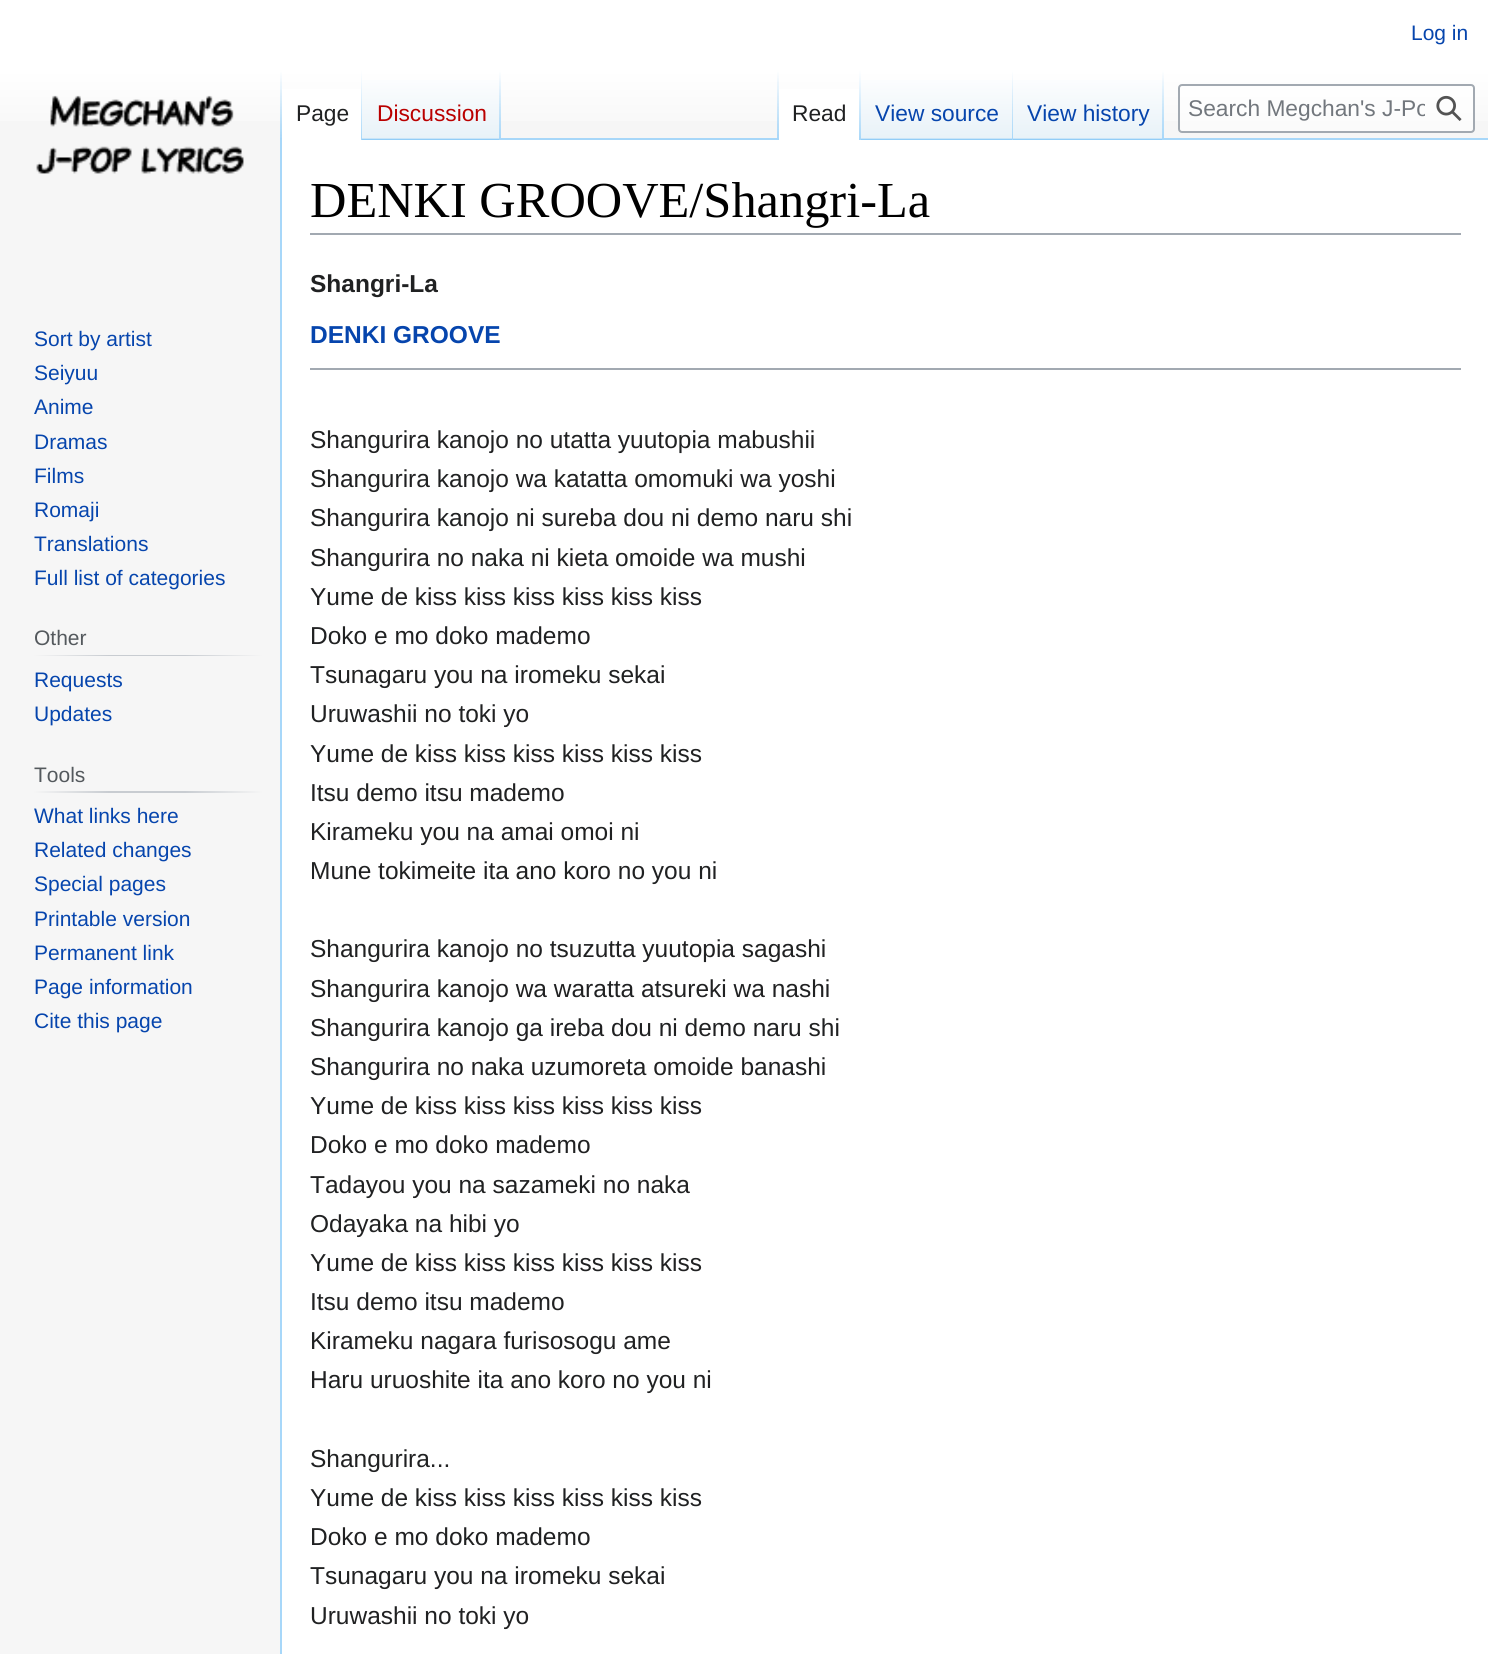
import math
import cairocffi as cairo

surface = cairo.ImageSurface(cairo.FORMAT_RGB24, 1488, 1654)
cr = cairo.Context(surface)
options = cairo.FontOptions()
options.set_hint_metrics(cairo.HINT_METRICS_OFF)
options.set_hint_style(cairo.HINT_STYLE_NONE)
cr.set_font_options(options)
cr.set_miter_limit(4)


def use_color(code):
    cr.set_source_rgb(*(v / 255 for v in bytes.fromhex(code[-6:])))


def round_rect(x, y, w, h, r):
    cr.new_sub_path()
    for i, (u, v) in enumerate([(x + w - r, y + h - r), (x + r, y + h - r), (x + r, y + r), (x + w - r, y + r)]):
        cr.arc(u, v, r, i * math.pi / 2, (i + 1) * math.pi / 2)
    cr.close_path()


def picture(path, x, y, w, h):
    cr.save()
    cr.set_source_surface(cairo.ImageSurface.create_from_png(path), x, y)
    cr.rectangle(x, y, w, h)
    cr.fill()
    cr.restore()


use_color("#f6f6f6")
cr.paint()
gradient = cairo.LinearGradient(745, 0, 745, 140)
gradient.add_color_stop_rgba(0.5, 1, 1, 1, 1)
gradient.add_color_stop_rgba(1, 0.965, 0.965, 0.965, 1)
cr.set_source(gradient)
cr.rectangle(0, 0, 1488, 121)
cr.fill()
cr.select_font_face("Liberation Sans")
cr.set_font_size(21)
use_color("#0645ad")
cr.move_to(1411, 40)
cr.show_text("Log in")
use_color("#a7d7f9")
cr.rectangle(280, 138, 2, 1516)
cr.fill()
gradient = cairo.LinearGradient(281, 70, 281, 140)
gradient.add_color_stop_rgba(0, 0.655, 0.843, 0.976, 0)
gradient.add_color_stop_rgba(1, 0.655, 0.843, 0.976, 1)
cr.set_source(gradient)
cr.rectangle(280, 70, 2, 70)
cr.fill()
use_color("#ffffff")
cr.rectangle(282, 89, 79, 51)
cr.fill()
gradient = cairo.LinearGradient(361, 70, 361, 140)
gradient.add_color_stop_rgba(0, 1, 1, 1, 1)
gradient.add_color_stop_rgba(1, 0.655, 0.843, 0.976, 1)
cr.set_source(gradient)
cr.rectangle(361, 70, 1, 70)
cr.fill()
cr.set_font_size(22.75)
use_color("#202122")
cr.move_to(296, 121)
cr.show_text("Page")
gradient = cairo.LinearGradient(431, 140, 431, 70)
gradient.add_color_stop_rgba(0, 0.467, 0.757, 0.965, 1)
gradient.add_color_stop_rgba(0.03, 0.91, 0.949, 0.973, 1)
gradient.add_color_stop_rgba(1, 1, 1, 1, 1)
cr.set_source(gradient)
cr.rectangle(362, 80, 139, 60)
cr.fill()
gradient = cairo.LinearGradient(500, 70, 500, 140)
gradient.add_color_stop_rgba(0, 0.655, 0.843, 0.976, 0)
gradient.add_color_stop_rgba(1, 0.655, 0.843, 0.976, 1)
cr.set_source(gradient)
cr.rectangle(499, 70, 2, 70)
cr.fill()
use_color("#ba0000")
cr.move_to(377, 121)
cr.show_text("Discussion")
use_color("#a7d7f9")
cr.rectangle(501, 138, 987, 2)
cr.fill()
gradient = cairo.LinearGradient(778, 70, 778, 140)
gradient.add_color_stop_rgba(0, 0.655, 0.843, 0.976, 0)
gradient.add_color_stop_rgba(1, 0.655, 0.843, 0.976, 1)
cr.set_source(gradient)
cr.rectangle(777, 70, 2, 70)
cr.fill()
use_color("#ffffff")
cr.rectangle(779, 89, 80, 51)
cr.fill()
gradient = cairo.LinearGradient(860, 70, 860, 140)
gradient.add_color_stop_rgba(0, 1, 1, 1, 1)
gradient.add_color_stop_rgba(1, 0.655, 0.843, 0.976, 1)
cr.set_source(gradient)
cr.rectangle(859, 70, 2, 70)
cr.fill()
use_color("#202122")
cr.move_to(792, 121)
cr.show_text("Read")
gradient = cairo.LinearGradient(937, 140, 937, 70)
gradient.add_color_stop_rgba(0, 0.467, 0.757, 0.965, 1)
gradient.add_color_stop_rgba(0.03, 0.91, 0.949, 0.973, 1)
gradient.add_color_stop_rgba(1, 1, 1, 1, 1)
cr.set_source(gradient)
cr.rectangle(861, 80, 152, 60)
cr.fill()
gradient = cairo.LinearGradient(1012, 70, 1012, 140)
gradient.add_color_stop_rgba(0, 0.655, 0.843, 0.976, 0)
gradient.add_color_stop_rgba(1, 0.655, 0.843, 0.976, 1)
cr.set_source(gradient)
cr.rectangle(1012, 70, 1, 70)
cr.fill()
use_color("#0645ad")
cr.move_to(875, 121)
cr.show_text("View source")
gradient = cairo.LinearGradient(1089, 140, 1089, 70)
gradient.add_color_stop_rgba(0, 0.467, 0.757, 0.965, 1)
gradient.add_color_stop_rgba(0.03, 0.91, 0.949, 0.973, 1)
gradient.add_color_stop_rgba(1, 1, 1, 1, 1)
cr.set_source(gradient)
cr.rectangle(1013, 80, 151, 60)
cr.fill()
gradient = cairo.LinearGradient(1163, 70, 1163, 140)
gradient.add_color_stop_rgba(0, 0.655, 0.843, 0.976, 0)
gradient.add_color_stop_rgba(1, 0.655, 0.843, 0.976, 1)
cr.set_source(gradient)
cr.rectangle(1162, 70, 2, 70)
cr.fill()
use_color("#0645ad")
cr.move_to(1027, 121)
cr.show_text("View history")
cr.set_source_rgba(1, 1, 1, 0.5)
round_rect(1179, 85, 295, 47, 3)
cr.fill_preserve()
use_color("#a2a9b1")
cr.stroke()
cr.save()
cr.rectangle(1188, 96, 237, 27)
cr.clip()
use_color("#72777d")
cr.move_to(1188, 116)
cr.show_text("Search Megchan's J-Po")
cr.restore()
picture("img1.png", 1436, 95, 26, 26)
picture("img2.png", 36, 95, 208, 79)
cr.set_font_size(21)
use_color("#0645ad")
cr.move_to(34, 346)
cr.show_text("Sort by artist")
cr.move_to(34, 380)
cr.show_text("Seiyuu")
cr.move_to(34, 414)
cr.show_text("Anime")
cr.move_to(34, 449)
cr.show_text("Dramas")
cr.move_to(34, 483)
cr.show_text("Films")
cr.move_to(34, 517)
cr.show_text("Romaji")
cr.move_to(34, 551)
cr.show_text("Translations")
cr.move_to(34, 585)
cr.show_text("Full list of categories")
gradient = cairo.LinearGradient(33, 655, 263, 655)
gradient.add_color_stop_rgba(0, 0.965, 0.965, 0.965, 1)
gradient.add_color_stop_rgba(0.33, 0.784, 0.8, 0.82, 1)
gradient.add_color_stop_rgba(0.66, 0.784, 0.8, 0.82, 1)
gradient.add_color_stop_rgba(1, 0.965, 0.965, 0.965, 1)
cr.set_source(gradient)
cr.rectangle(33, 655, 230, 1)
cr.fill()
use_color("#54595d")
cr.move_to(34, 645)
cr.show_text("Other")
use_color("#0645ad")
cr.move_to(34, 687)
cr.show_text("Requests")
cr.move_to(34, 721)
cr.show_text("Updates")
gradient = cairo.LinearGradient(33, 792, 263, 792)
gradient.add_color_stop_rgba(0, 0.965, 0.965, 0.965, 1)
gradient.add_color_stop_rgba(0.33, 0.784, 0.8, 0.82, 1)
gradient.add_color_stop_rgba(0.66, 0.784, 0.8, 0.82, 1)
gradient.add_color_stop_rgba(1, 0.965, 0.965, 0.965, 1)
cr.set_source(gradient)
cr.rectangle(33, 791, 230, 2)
cr.fill()
use_color("#54595d")
cr.move_to(34, 782)
cr.show_text("Tools")
use_color("#0645ad")
cr.move_to(34, 823)
cr.show_text("What links here")
cr.move_to(34, 857)
cr.show_text("Related changes")
cr.move_to(34, 891)
cr.show_text("Special pages")
cr.move_to(34, 926)
cr.show_text("Printable version")
cr.move_to(34, 960)
cr.show_text("Permanent link")
cr.move_to(34, 994)
cr.show_text("Page information")
cr.move_to(34, 1028)
cr.show_text("Cite this page")
use_color("#ffffff")
cr.rectangle(282, 140, 1206, 1514)
cr.fill()
use_color("#a2a9b1")
cr.rectangle(310, 233, 1151, 2)
cr.fill()
cr.select_font_face("Liberation Serif")
cr.set_font_size(50.4)
use_color("#000000")
cr.move_to(310, 217)
cr.show_text("DENKI GROOVE/Shangri-La")
cr.select_font_face("Liberation Sans", cairo.FONT_SLANT_NORMAL, cairo.FONT_WEIGHT_BOLD)
cr.set_font_size(24.5)
use_color("#202122")
cr.move_to(310, 292)
cr.show_text("Shangri-La")
use_color("#0645ad")
cr.move_to(310, 343)
cr.show_text("DENKI GROOVE")
use_color("#a2a9b1")
cr.rectangle(310, 368, 1151, 2)
cr.fill()
cr.select_font_face("Liberation Sans")
use_color("#202122")
cr.move_to(310, 448)
cr.show_text("Shangurira kanojo no utatta yuutopia mabushii")
cr.move_to(310, 487)
cr.show_text("Shangurira kanojo wa katatta omomuki wa yoshi")
cr.move_to(310, 526)
cr.show_text("Shangurira kanojo ni sureba dou ni demo naru shi")
cr.move_to(310, 566)
cr.show_text("Shangurira no naka ni kieta omoide wa mushi")
cr.move_to(310, 605)
cr.show_text("Yume de kiss kiss kiss kiss kiss kiss")
cr.move_to(310, 644)
cr.show_text("Doko e mo doko mademo")
cr.move_to(310, 683)
cr.show_text("Tsunagaru you na iromeku sekai")
cr.move_to(310, 722)
cr.show_text("Uruwashii no toki yo")
cr.move_to(310, 762)
cr.show_text("Yume de kiss kiss kiss kiss kiss kiss")
cr.move_to(310, 801)
cr.show_text("Itsu demo itsu mademo")
cr.move_to(310, 840)
cr.show_text("Kirameku you na amai omoi ni")
cr.move_to(310, 879)
cr.show_text("Mune tokimeite ita ano koro no you ni")
cr.move_to(310, 957)
cr.show_text("Shangurira kanojo no tsuzutta yuutopia sagashi")
cr.move_to(310, 997)
cr.show_text("Shangurira kanojo wa waratta atsureki wa nashi")
cr.move_to(310, 1036)
cr.show_text("Shangurira kanojo ga ireba dou ni demo naru shi")
cr.move_to(310, 1075)
cr.show_text("Shangurira no naka uzumoreta omoide banashi")
cr.move_to(310, 1114)
cr.show_text("Yume de kiss kiss kiss kiss kiss kiss")
cr.move_to(310, 1153)
cr.show_text("Doko e mo doko mademo")
cr.move_to(310, 1193)
cr.show_text("Tadayou you na sazameki no naka")
cr.move_to(310, 1232)
cr.show_text("Odayaka na hibi yo")
cr.move_to(310, 1271)
cr.show_text("Yume de kiss kiss kiss kiss kiss kiss")
cr.move_to(310, 1310)
cr.show_text("Itsu demo itsu mademo")
cr.move_to(310, 1349)
cr.show_text("Kirameku nagara furisosogu ame")
cr.move_to(310, 1388)
cr.show_text("Haru uruoshite ita ano koro no you ni")
cr.move_to(310, 1467)
cr.show_text("Shangurira...")
cr.move_to(310, 1506)
cr.show_text("Yume de kiss kiss kiss kiss kiss kiss")
cr.move_to(310, 1545)
cr.show_text("Doko e mo doko mademo")
cr.move_to(310, 1584)
cr.show_text("Tsunagaru you na iromeku sekai")
cr.move_to(310, 1624)
cr.show_text("Uruwashii no toki yo")
surface.write_to_png("result.png")
